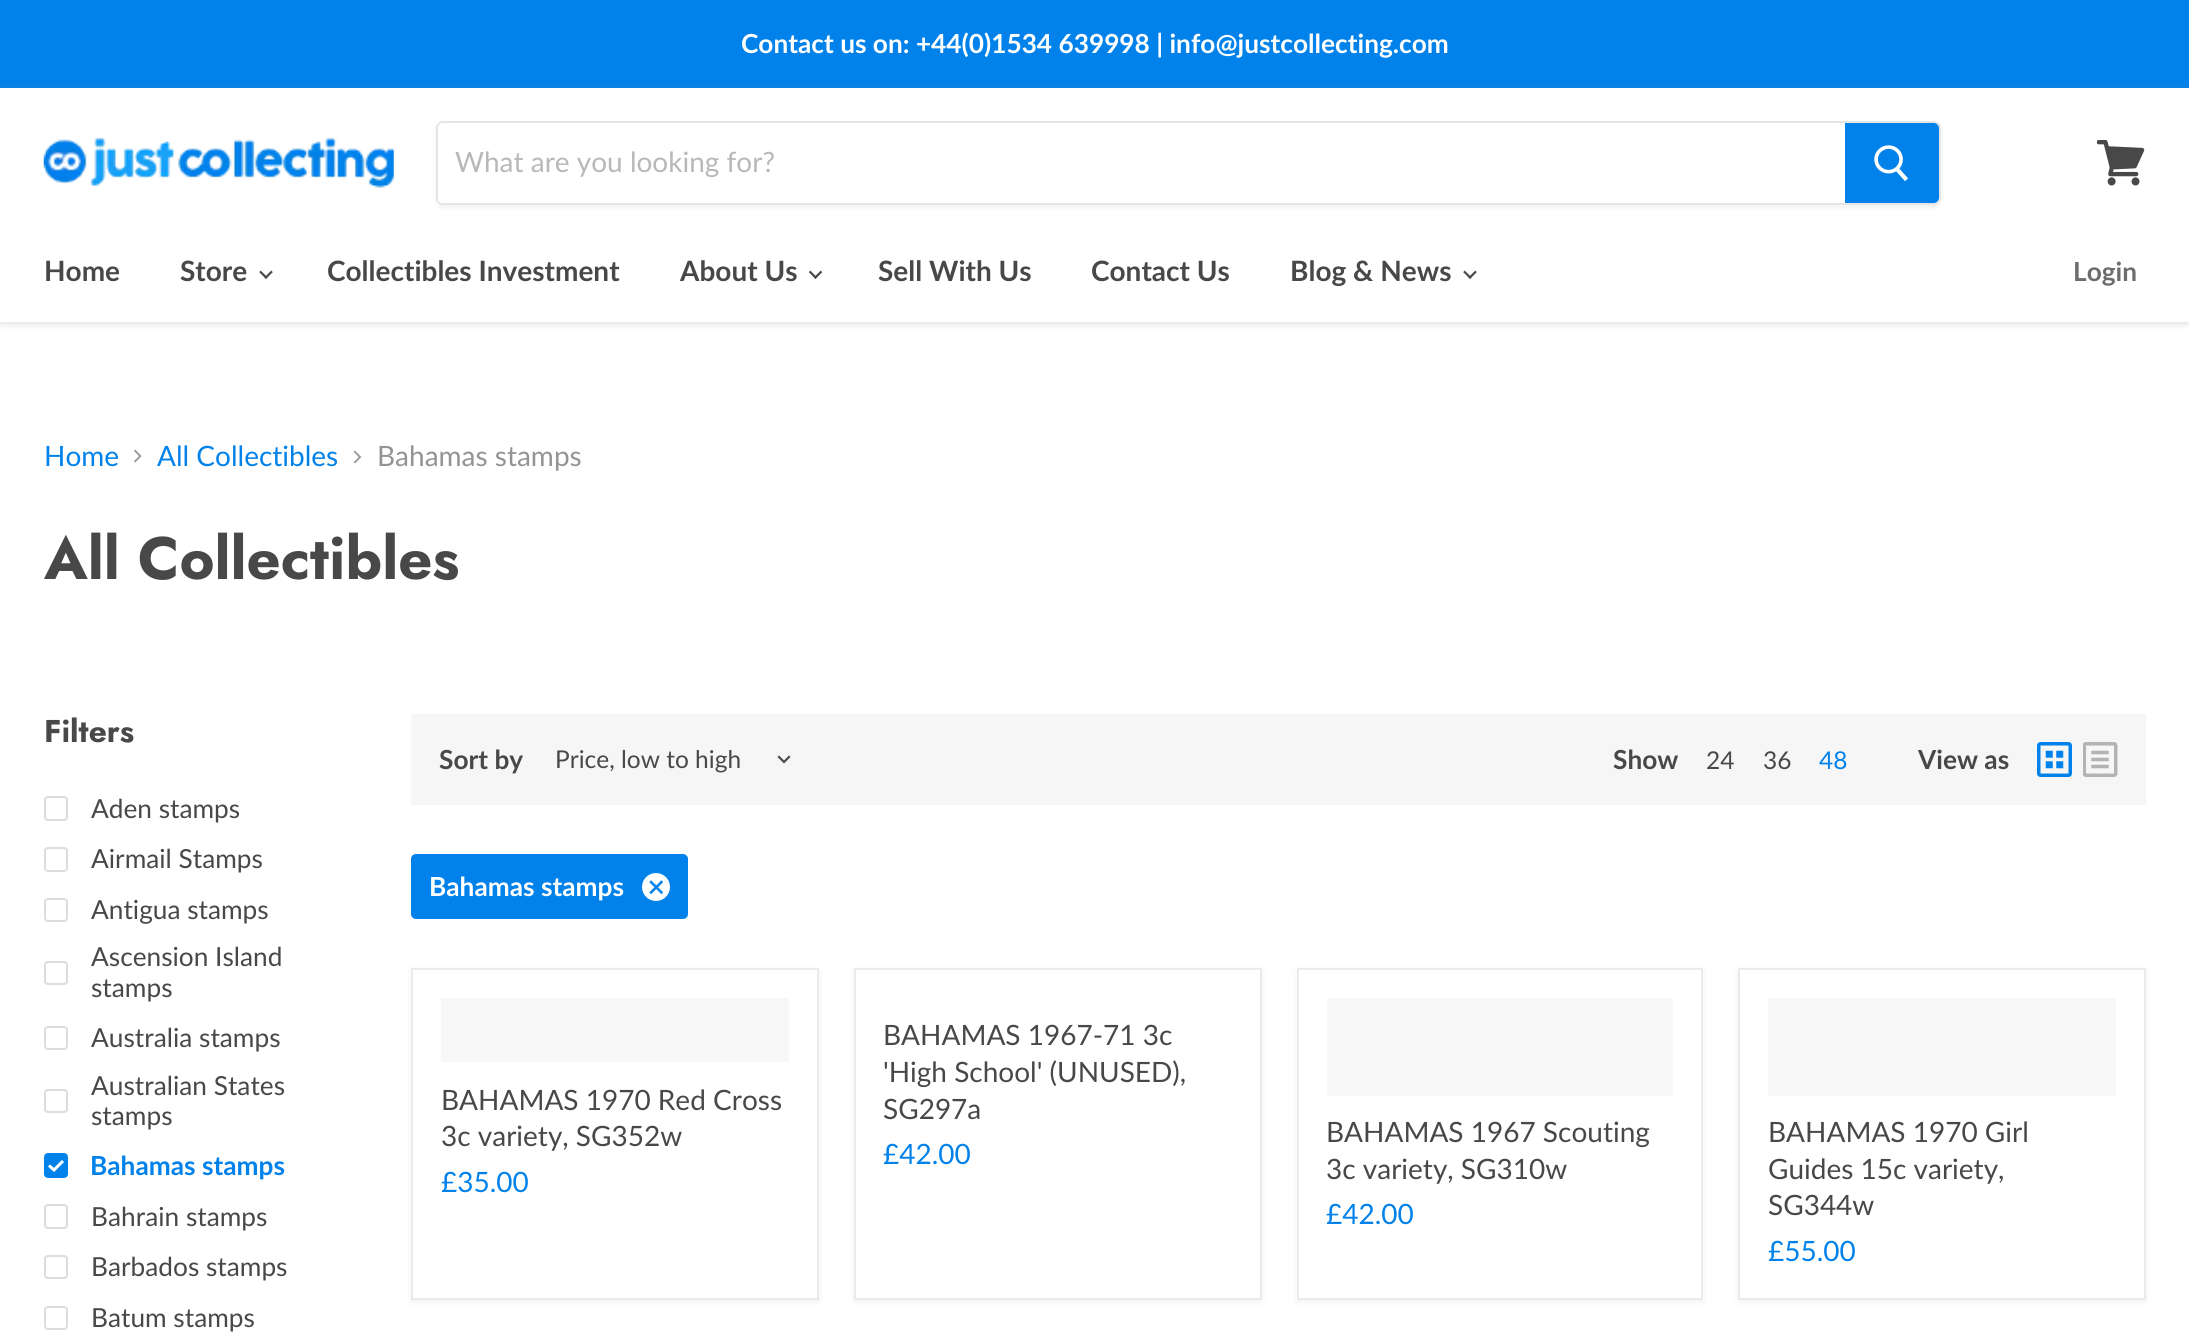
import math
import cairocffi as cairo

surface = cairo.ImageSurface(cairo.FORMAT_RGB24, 2189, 1335)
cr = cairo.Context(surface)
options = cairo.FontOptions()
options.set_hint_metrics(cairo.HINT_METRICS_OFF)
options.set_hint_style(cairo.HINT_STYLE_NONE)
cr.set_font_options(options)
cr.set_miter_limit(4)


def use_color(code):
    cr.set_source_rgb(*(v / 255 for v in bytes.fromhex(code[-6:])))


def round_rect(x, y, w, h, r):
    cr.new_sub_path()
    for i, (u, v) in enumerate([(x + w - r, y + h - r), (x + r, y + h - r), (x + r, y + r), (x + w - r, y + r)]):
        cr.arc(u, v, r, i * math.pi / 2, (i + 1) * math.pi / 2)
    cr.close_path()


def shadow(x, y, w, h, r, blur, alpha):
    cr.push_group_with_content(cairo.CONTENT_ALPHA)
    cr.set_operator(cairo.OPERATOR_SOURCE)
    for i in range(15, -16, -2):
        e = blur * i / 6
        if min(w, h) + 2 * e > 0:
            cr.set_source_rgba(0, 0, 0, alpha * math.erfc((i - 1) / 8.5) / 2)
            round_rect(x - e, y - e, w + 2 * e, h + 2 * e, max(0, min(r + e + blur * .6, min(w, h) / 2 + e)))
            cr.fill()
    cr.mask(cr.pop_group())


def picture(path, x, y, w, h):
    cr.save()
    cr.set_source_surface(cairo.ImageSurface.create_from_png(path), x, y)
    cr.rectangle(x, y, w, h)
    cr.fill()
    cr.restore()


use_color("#ffffff")
cr.paint()
use_color("#0182ea")
cr.rectangle(0, 0, 2189, 88)
cr.fill()
cr.select_font_face("Lato", cairo.FONT_SLANT_NORMAL, cairo.FONT_WEIGHT_BOLD)
cr.set_font_size(26.25)
use_color("#ffffff")
cr.move_to(741, 53)
cr.show_text("Contact us on: +44(0)1534 639998 | info@justcollecting.com")
cr.save()
cr.set_fill_rule(cairo.FILL_RULE_EVEN_ODD)
cr.new_path()
cr.move_to(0, 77)
cr.line_to(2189, 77)
cr.line_to(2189, 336)
cr.line_to(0, 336)
cr.close_path()
cr.move_to(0, 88)
cr.line_to(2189, 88)
cr.line_to(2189, 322)
cr.line_to(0, 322)
cr.close_path()
cr.clip()
use_color("#808080")
shadow(0, 89, 2189, 235, 0, 3.5, 0.25)
cr.restore()
picture("img1.png", 43, 137, 351, 51)
cr.save()
cr.set_fill_rule(cairo.FILL_RULE_EVEN_ODD)
cr.new_path()
cr.move_to(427, 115)
cr.line_to(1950, 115)
cr.line_to(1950, 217)
cr.line_to(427, 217)
cr.close_path()
cr.move_to(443, 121)
cr.line_to(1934, 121)
cr.curve_to(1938, 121, 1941, 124, 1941, 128)
cr.line_to(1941, 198)
cr.curve_to(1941, 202, 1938, 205, 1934, 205)
cr.line_to(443, 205)
cr.curve_to(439, 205, 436, 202, 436, 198)
cr.line_to(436, 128)
cr.curve_to(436, 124, 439, 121, 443, 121)
cr.close_path()
cr.clip()
use_color("#808080")
shadow(436, 124, 1505, 84, 7, 2.5, 0.11)
cr.restore()
round_rect(437, 122, 1503, 82, 6)
cr.set_source_rgba(0.502, 0.502, 0.502, 0.2)
cr.stroke()
use_color("#ffffff")
cr.new_path()
cr.move_to(443, 123)
cr.line_to(1845, 123)
cr.line_to(1845, 203)
cr.line_to(443, 203)
cr.curve_to(440, 203, 438, 201, 438, 198)
cr.line_to(438, 128)
cr.curve_to(438, 125, 440, 123, 443, 123)
cr.close_path()
cr.fill()
cr.select_font_face("Lato")
cr.set_font_size(28)
use_color("#b8b8b8")
cr.move_to(455, 172)
cr.show_text("What are you looking for?")
use_color("#0182ea")
cr.new_path()
cr.move_to(1846, 124)
cr.line_to(1934, 124)
cr.curve_to(1936, 124, 1938, 126, 1938, 128)
cr.line_to(1938, 198)
cr.curve_to(1938, 200, 1936, 202, 1934, 202)
cr.line_to(1846, 202)
cr.close_path()
cr.fill_preserve()
cr.stroke()
picture("img2.png", 1874, 145, 34, 36)
picture("img3.png", 2097, 140, 48, 46)
cr.select_font_face("Lato", cairo.FONT_SLANT_NORMAL, cairo.FONT_WEIGHT_BOLD)
use_color("#484848")
cr.move_to(44, 281)
cr.show_text("Home")
cr.move_to(180, 281)
cr.show_text("Store")
picture("img4.png", 259, 270, 14, 9)
cr.move_to(327, 281)
cr.show_text("Collectibles Investment")
cr.move_to(680, 281)
cr.show_text("About Us")
picture("img5.png", 809, 270, 14, 9)
cr.move_to(878, 281)
cr.show_text("Sell With Us")
cr.move_to(1091, 281)
cr.show_text("Contact Us")
cr.move_to(1290, 281)
cr.show_text("Blog & News")
picture("img4.png", 1463, 270, 14, 9)
cr.set_font_size(26.25)
use_color("#6d6d6d")
cr.move_to(2073, 281)
cr.show_text("Login")
cr.select_font_face("Lato")
cr.set_font_size(28)
use_color("#0182ea")
cr.move_to(44, 466)
cr.show_text("Home")
picture("img6.png", 134, 449, 8, 14)
cr.move_to(157, 466)
cr.show_text("All Collectibles")
picture("img7.png", 353, 450, 9, 14)
use_color("#949494")
cr.move_to(377, 466)
cr.show_text("Bahamas stamps")
cr.select_font_face("Jost", cairo.FONT_SLANT_NORMAL, cairo.FONT_WEIGHT_BOLD)
cr.set_font_size(59.5)
use_color("#484848")
cr.move_to(44, 579)
cr.show_text("All Collectibles")
cr.set_font_size(31.5)
cr.move_to(44, 742)
cr.show_text("Filters")
round_rect(45, 797, 22, 23, 3)
use_color("#dddddd")
cr.stroke()
cr.select_font_face("Lato")
cr.set_font_size(26.25)
use_color("#484848")
cr.move_to(91, 818)
cr.show_text("Aden stamps")
round_rect(45, 848, 22, 23, 3)
use_color("#dddddd")
cr.stroke()
use_color("#484848")
cr.move_to(91, 868)
cr.show_text("Airmail Stamps")
round_rect(45, 899, 22, 22, 3)
use_color("#dddddd")
cr.stroke()
use_color("#484848")
cr.move_to(91, 919)
cr.show_text("Antigua stamps")
round_rect(45, 962, 22, 22, 3)
use_color("#dddddd")
cr.stroke()
use_color("#484848")
cr.move_to(91, 966)
cr.show_text("Ascension Island")
cr.move_to(91, 997)
cr.show_text("stamps")
round_rect(45, 1027, 22, 22, 3)
use_color("#dddddd")
cr.stroke()
use_color("#484848")
cr.move_to(91, 1047)
cr.show_text("Australia stamps")
round_rect(45, 1090, 22, 22, 3)
use_color("#dddddd")
cr.stroke()
use_color("#484848")
cr.move_to(91, 1095)
cr.show_text("Australian States")
cr.move_to(91, 1125)
cr.show_text("stamps")
use_color("#0182ea")
round_rect(45, 1154, 22, 23, 3)
cr.fill_preserve()
cr.stroke()
cr.new_path()
cr.move_to(49, 1165.5)
cr.line_to(54, 1170)
cr.line_to(63, 1161)
use_color("#ffffff")
cr.set_line_width(3)
cr.stroke()
cr.select_font_face("Lato", cairo.FONT_SLANT_NORMAL, cairo.FONT_WEIGHT_BOLD)
use_color("#0182ea")
cr.move_to(90, 1175)
cr.show_text("Bahamas stamps")
round_rect(45, 1205, 22, 23, 3)
use_color("#dddddd")
cr.set_line_width(2)
cr.stroke()
cr.select_font_face("Lato")
use_color("#484848")
cr.move_to(91, 1226)
cr.show_text("Bahrain stamps")
round_rect(45, 1256, 22, 22, 3)
use_color("#dddddd")
cr.stroke()
use_color("#484848")
cr.move_to(91, 1276)
cr.show_text("Barbados stamps")
round_rect(45, 1307, 22, 22, 3)
use_color("#dddddd")
cr.stroke()
use_color("#484848")
cr.move_to(91, 1327)
cr.show_text("Batum stamps")
use_color("#f6f6f6")
cr.rectangle(411, 714, 1735, 91)
cr.fill()
cr.select_font_face("Lato", cairo.FONT_SLANT_NORMAL, cairo.FONT_WEIGHT_BOLD)
use_color("#484848")
cr.move_to(439, 769)
cr.show_text("Sort by")
cr.select_font_face("Lato")
cr.set_font_size(24.5)
cr.move_to(555, 768)
cr.show_text("Price, low to high")
cr.new_path()
cr.move_to(784, 762)
cr.line_to(789, 757)
cr.move_to(784, 762)
cr.line_to(779, 757)
use_color("#4d4d4d")
cr.set_line_width(2.2)
cr.set_line_cap(cairo.LINE_CAP_SQUARE)
cr.stroke()
cr.select_font_face("Lato", cairo.FONT_SLANT_NORMAL, cairo.FONT_WEIGHT_BOLD)
cr.set_font_size(26.25)
use_color("#484848")
cr.move_to(1613, 769)
cr.show_text("Show")
cr.select_font_face("Lato")
cr.set_font_size(24.5)
cr.move_to(1706, 769)
cr.show_text("24")
cr.move_to(1763, 769)
cr.show_text("36")
use_color("#0182ea")
cr.move_to(1819, 769)
cr.show_text("48")
cr.select_font_face("Lato", cairo.FONT_SLANT_NORMAL, cairo.FONT_WEIGHT_BOLD)
cr.set_font_size(26.25)
use_color("#484848")
cr.move_to(1918, 769)
cr.show_text("View as")
picture("img8.png", 2037, 742, 35, 35)
picture("img9.png", 2083, 742, 35, 35)
use_color("#0182ea")
round_rect(411, 854, 277, 65, 5)
cr.fill()
use_color("#ffffff")
cr.move_to(429, 896)
cr.show_text("Bahamas stamps")
cr.new_path()
cr.arc(656, 887, 14, 0, 2 * math.pi)
cr.fill()
picture("img10.png", 649, 880, 14, 14)
use_color("#808080")
shadow(411, 970, 408, 332, 0, 3.5, 0.11)
use_color("#ffffff")
cr.rectangle(412, 969, 406, 330)
cr.fill_preserve()
use_color("#ebebeb")
cr.set_line_width(2)
cr.set_line_cap(cairo.LINE_CAP_BUTT)
cr.stroke()
use_color("#f8f8f8")
cr.rectangle(441, 998, 348, 64)
cr.fill()
cr.select_font_face("Lato")
cr.set_font_size(28)
use_color("#484848")
cr.move_to(441, 1110)
cr.show_text("BAHAMAS 1970 Red Cross")
cr.move_to(441, 1146)
cr.show_text("3c variety, SG352w")
use_color("#0182ea")
cr.move_to(441, 1192)
cr.show_text("£35.00")
use_color("#808080")
shadow(854, 970, 408, 332, 0, 3.5, 0.11)
use_color("#ffffff")
cr.rectangle(855, 969, 406, 330)
cr.fill_preserve()
use_color("#ebebeb")
cr.stroke()
use_color("#484848")
cr.move_to(883, 1045)
cr.show_text("BAHAMAS 1967-71 3c")
cr.move_to(883, 1082)
cr.show_text("'High School' (UNUSED),")
cr.move_to(883, 1119)
cr.show_text("SG297a")
use_color("#0182ea")
cr.move_to(883, 1164)
cr.show_text("£42.00")
use_color("#808080")
shadow(1297, 970, 406, 332, 0, 3.5, 0.11)
use_color("#ffffff")
cr.rectangle(1298, 969, 404, 330)
cr.fill_preserve()
use_color("#ebebeb")
cr.stroke()
use_color("#f8f8f8")
cr.rectangle(1327, 998, 346, 98)
cr.fill()
use_color("#484848")
cr.move_to(1326, 1142)
cr.show_text("BAHAMAS 1967 Scouting")
cr.move_to(1326, 1179)
cr.show_text("3c variety, SG310w")
use_color("#0182ea")
cr.move_to(1326, 1224)
cr.show_text("£42.00")
use_color("#808080")
shadow(1738, 970, 408, 332, 0, 3.5, 0.11)
use_color("#ffffff")
cr.rectangle(1739, 969, 406, 330)
cr.fill_preserve()
use_color("#ebebeb")
cr.stroke()
use_color("#f8f8f8")
cr.rectangle(1768, 998, 348, 98)
cr.fill()
use_color("#484848")
cr.move_to(1768, 1142)
cr.show_text("BAHAMAS 1970 Girl")
cr.move_to(1768, 1179)
cr.show_text("Guides 15c variety,")
cr.move_to(1768, 1215)
cr.show_text("SG344w")
use_color("#0182ea")
cr.move_to(1768, 1261)
cr.show_text("£55.00")
surface.write_to_png("result.png")
